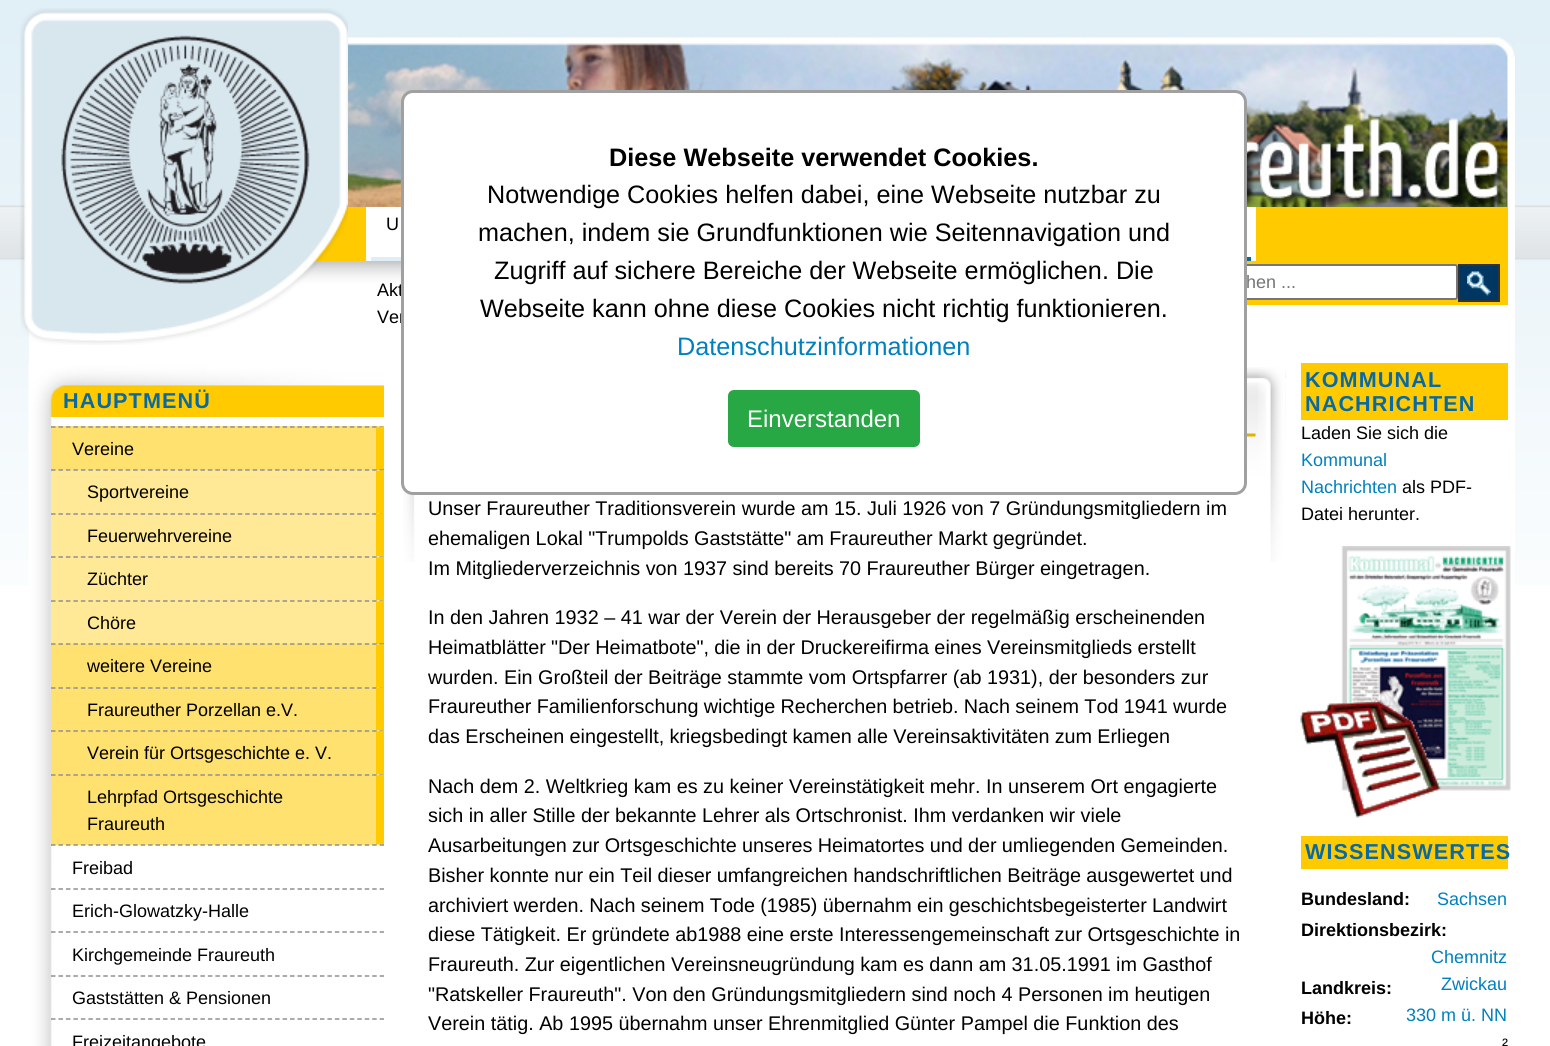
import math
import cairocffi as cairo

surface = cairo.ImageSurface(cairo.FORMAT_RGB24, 1550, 1046)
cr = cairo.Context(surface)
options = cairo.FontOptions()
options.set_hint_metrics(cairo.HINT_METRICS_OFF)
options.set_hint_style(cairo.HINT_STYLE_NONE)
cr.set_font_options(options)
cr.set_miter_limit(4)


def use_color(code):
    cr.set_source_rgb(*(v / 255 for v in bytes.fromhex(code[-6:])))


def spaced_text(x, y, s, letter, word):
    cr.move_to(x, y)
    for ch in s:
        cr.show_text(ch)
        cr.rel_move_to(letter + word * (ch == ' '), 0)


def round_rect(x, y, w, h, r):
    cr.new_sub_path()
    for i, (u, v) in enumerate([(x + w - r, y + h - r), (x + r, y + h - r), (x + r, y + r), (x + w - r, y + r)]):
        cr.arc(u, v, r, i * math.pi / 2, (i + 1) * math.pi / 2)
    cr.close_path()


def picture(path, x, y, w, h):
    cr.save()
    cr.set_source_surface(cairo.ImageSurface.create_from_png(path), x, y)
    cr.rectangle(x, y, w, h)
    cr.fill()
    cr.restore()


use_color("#ffffff")
cr.paint()
picture("img1.png", 0, 0, 1550, 585)
picture("img3.png", 346, 37, 1169, 170)
use_color("#ffca00")
cr.rectangle(313, 207, 1195, 54)
cr.fill()
use_color("#ffffff")
cr.rectangle(29, 333, 1479, 252)
cr.fill()
picture("img4.png", 28, 261, 1480, 72)
picture("img2.png", 20, 8, 328, 337)
cr.select_font_face("Liberation Sans")
cr.set_font_size(18)
use_color("#000000")
cr.move_to(377, 296)
cr.show_text("Akt")
cr.move_to(377, 323)
cr.show_text("Ver")
use_color("#ffca00")
cr.rectangle(1247, 261, 261, 44)
cr.fill()
use_color("#ffffff")
round_rect(1206, 265, 251, 34, 2)
cr.fill_preserve()
use_color("#767676")
cr.stroke()
picture("img8.png", 403, 367, 883, 195)
cr.new_path()
cr.move_to(429, 435)
cr.line_to(1255.5, 435)
use_color("#dfb200")
cr.set_line_width(3)
cr.set_dash([9, 5.87])
cr.stroke()
use_color("#ffffff")
round_rect(402.5, 91.5, 843, 402, 10.5)
cr.fill_preserve()
use_color("#a0a0a0")
cr.set_dash([])
cr.stroke()
cr.select_font_face("Liberation Sans", cairo.FONT_SLANT_NORMAL, cairo.FONT_WEIGHT_BOLD)
cr.set_font_size(25.25)
use_color("#000000")
cr.move_to(609, 166)
cr.show_text("Diese Webseite verwendet Cookies.")
cr.select_font_face("Liberation Sans")
cr.set_font_size(25.2)
cr.move_to(487, 203)
cr.show_text("Notwendige Cookies helfen dabei, eine Webseite nutzbar zu")
cr.move_to(478, 241)
cr.show_text("machen, indem sie Grundfunktionen wie Seitennavigation und")
cr.move_to(494, 279)
cr.show_text("Zugriff auf sichere Bereiche der Webseite ermöglichen. Die")
cr.move_to(480, 317)
cr.show_text("Webseite kann ohne diese Cookies nicht richtig funktionieren.")
cr.set_font_size(25.25)
use_color("#0080bf")
cr.move_to(677, 355)
cr.show_text("Datenschutzinformationen")
use_color("#28a745")
round_rect(729, 391, 190, 55, 5)
cr.fill_preserve()
cr.set_line_width(2)
cr.stroke()
cr.set_font_size(24)
use_color("#ffffff")
cr.move_to(747, 427)
cr.show_text("Einverstanden")
cr.rectangle(366, 207, 5, 54)
cr.fill()
cr.rectangle(371, 207, 30, 50)
cr.fill()
use_color("#dfeef6")
cr.rectangle(371, 257, 30, 4)
cr.fill()
cr.set_font_size(18)
use_color("#000000")
spaced_text(386, 230, "U", 2, 0)
use_color("#ffffff")
cr.rectangle(1251, 207, 5, 54)
cr.fill()
cr.rectangle(1247, 207, 4, 50)
cr.fill()
use_color("#0969a3")
cr.rectangle(1247, 257, 4, 4)
cr.fill()
use_color("#ffffff")
cr.rectangle(1508, 207, 7, 378)
cr.fill()
use_color("#757575")
cr.move_to(1246, 288)
cr.show_text("hen ...")
use_color("#003762")
cr.rectangle(1459, 265, 40, 36)
cr.fill_preserve()
use_color("#333333")
cr.stroke()
picture("img5.png", 1467, 271, 24, 25)
use_color("#ffca00")
cr.rectangle(50, 385, 334, 32)
cr.fill()
picture("img6.png", 28, 363, 356, 54)
cr.select_font_face("Liberation Sans", cairo.FONT_SLANT_NORMAL, cairo.FONT_WEIGHT_BOLD)
cr.set_font_size(21.6)
use_color("#0969a3")
spaced_text(63, 408, "HAUPTMENÜ", 1.1, 0)
picture("img7.png", 28, 417, 24, 629)
use_color("#ffe170")
cr.rectangle(51, 426, 333, 44)
cr.fill()
cr.new_path()
cr.move_to(51, 427)
cr.line_to(384, 427)
use_color("#8f8f8f")
cr.set_line_width(1.5)
cr.set_dash([4.5, 2.97])
cr.stroke()
use_color("#ffca00")
cr.new_path()
cr.move_to(384, 426)
cr.line_to(384, 470)
cr.line_to(376, 470)
cr.line_to(376, 428)
cr.close_path()
cr.fill()
cr.select_font_face("Liberation Sans")
cr.set_font_size(18)
use_color("#000000")
cr.move_to(72, 455)
cr.show_text("Vereine")
use_color("#ffe996")
cr.rectangle(51, 470, 333, 87)
cr.fill()
cr.new_path()
cr.move_to(51, 470)
cr.line_to(384, 470)
use_color("#8f8f8f")
cr.stroke()
use_color("#ffca00")
cr.new_path()
cr.move_to(384, 470)
cr.line_to(384, 513)
cr.line_to(376, 513)
cr.line_to(376, 471)
cr.close_path()
cr.fill()
use_color("#000000")
cr.move_to(87, 498)
cr.show_text("Sportvereine")
cr.new_path()
cr.move_to(51, 514)
cr.line_to(384, 514)
use_color("#8f8f8f")
cr.stroke()
use_color("#ffca00")
cr.new_path()
cr.move_to(384, 513)
cr.line_to(384, 556)
cr.line_to(376, 556)
cr.line_to(376, 514)
cr.close_path()
cr.fill()
use_color("#000000")
cr.move_to(87, 542)
cr.show_text("Feuerwehrvereine")
use_color("#ffe996")
cr.rectangle(51, 557, 329, 43)
cr.fill()
cr.new_path()
cr.move_to(51, 557)
cr.line_to(384, 557)
use_color("#8f8f8f")
cr.stroke()
use_color("#ffca00")
cr.new_path()
cr.move_to(384, 556)
cr.line_to(384, 600)
cr.line_to(376, 600)
cr.line_to(376, 558)
cr.close_path()
cr.fill()
use_color("#000000")
cr.move_to(87, 585)
cr.show_text("Züchter")
use_color("#ffe996")
cr.rectangle(51, 600, 333, 44)
cr.fill()
cr.new_path()
cr.move_to(51, 601)
cr.line_to(384, 601)
use_color("#8f8f8f")
cr.stroke()
use_color("#ffca00")
cr.new_path()
cr.move_to(384, 600)
cr.line_to(384, 644)
cr.line_to(376, 644)
cr.line_to(376, 602)
cr.close_path()
cr.fill()
use_color("#000000")
cr.move_to(87, 629)
cr.show_text("Chöre")
use_color("#ffe170")
cr.rectangle(51, 644, 333, 87)
cr.fill()
cr.new_path()
cr.move_to(51, 644)
cr.line_to(384, 644)
use_color("#8f8f8f")
cr.stroke()
use_color("#ffca00")
cr.new_path()
cr.move_to(384, 644)
cr.line_to(384, 687)
cr.line_to(376, 687)
cr.line_to(376, 645)
cr.close_path()
cr.fill()
use_color("#000000")
cr.move_to(87, 672)
cr.show_text("weitere Vereine")
cr.new_path()
cr.move_to(51, 688)
cr.line_to(384, 688)
use_color("#8f8f8f")
cr.stroke()
use_color("#ffca00")
cr.new_path()
cr.move_to(384, 687)
cr.line_to(384, 730)
cr.line_to(376, 730)
cr.line_to(376, 688)
cr.close_path()
cr.fill()
use_color("#000000")
cr.move_to(87, 716)
cr.show_text("Fraureuther Porzellan e.V.")
use_color("#ffe170")
cr.rectangle(51, 731, 329, 43)
cr.fill()
cr.new_path()
cr.move_to(51, 731)
cr.line_to(384, 731)
use_color("#8f8f8f")
cr.stroke()
use_color("#ffca00")
cr.new_path()
cr.move_to(384, 730)
cr.line_to(384, 774)
cr.line_to(376, 774)
cr.line_to(376, 732)
cr.close_path()
cr.fill()
use_color("#000000")
cr.move_to(87, 759)
cr.show_text("Verein für Ortsgeschichte e. V.")
use_color("#ffe170")
cr.rectangle(51, 774, 333, 71)
cr.fill()
cr.new_path()
cr.move_to(51, 775)
cr.line_to(384, 775)
use_color("#8f8f8f")
cr.stroke()
use_color("#ffca00")
cr.new_path()
cr.move_to(384, 774)
cr.line_to(384, 844)
cr.line_to(376, 844)
cr.line_to(376, 776)
cr.close_path()
cr.fill()
use_color("#000000")
cr.move_to(87, 803)
cr.show_text("Lehrpfad Ortsgeschichte")
cr.move_to(87, 830)
cr.show_text("Fraureuth")
cr.new_path()
cr.move_to(51, 845)
cr.line_to(384, 845)
use_color("#8f8f8f")
cr.stroke()
use_color("#000000")
cr.move_to(72, 874)
cr.show_text("Freibad")
cr.new_path()
cr.move_to(51, 889)
cr.line_to(384, 889)
use_color("#8f8f8f")
cr.stroke()
use_color("#000000")
cr.move_to(72, 917)
cr.show_text("Erich-Glowatzky-Halle")
cr.new_path()
cr.move_to(51, 932)
cr.line_to(384, 932)
use_color("#8f8f8f")
cr.stroke()
use_color("#000000")
cr.move_to(72, 961)
cr.show_text("Kirchgemeinde Fraureuth")
cr.new_path()
cr.move_to(51, 976)
cr.line_to(384, 976)
use_color("#8f8f8f")
cr.stroke()
use_color("#000000")
cr.move_to(72, 1004)
cr.show_text("Gaststätten & Pensionen")
cr.new_path()
cr.move_to(51, 1019)
cr.line_to(384, 1019)
use_color("#8f8f8f")
cr.stroke()
use_color("#000000")
cr.move_to(72, 1048)
cr.show_text("Freizeitangebote")
picture("img9.png", 1258, 367, 28, 195)
cr.set_font_size(19.8)
cr.move_to(428, 515)
cr.show_text("Unser Fraureuther Traditionsverein wurde am 15. Juli 1926 von 7 Gründungsmitgliedern im")
spaced_text(428, 545, "ehemaligen Lokal \"Trumpolds Gaststätte\" am Fraureuther Markt gegründet.", 0, -0.25)
spaced_text(428, 575, "Im Mitgliederverzeichnis von 1937 sind bereits 70 Fraureuther Bürger eingetragen.", 0, -0.1)
cr.move_to(428, 624)
cr.show_text("In den Jahren 1932 – 41 war der Verein der Herausgeber der regelmäßig erscheinenden")
spaced_text(428, 654, "Heimatblätter \"Der Heimatbote\", die in der Druckereifirma eines Vereinsmitglieds erstellt", 0, -0.25)
cr.move_to(428, 684)
cr.show_text("wurden. Ein Großteil der Beiträge stammte vom Ortspfarrer (ab 1931), der besonders zur")
spaced_text(428, 713, "Fraureuther Familienforschung wichtige Recherchen betrieb. Nach seinem Tod 1941 wurde", 0, -0.25)
spaced_text(428, 743, "das Erscheinen eingestellt, kriegsbedingt kamen alle Vereinsaktivitäten zum Erliegen", 0, -0.25)
cr.move_to(428, 793)
cr.show_text("Nach dem 2. Weltkrieg kam es zu keiner Vereinstätigkeit mehr. In unserem Ort engagierte")
cr.move_to(428, 822)
cr.show_text("sich in aller Stille der bekannte Lehrer als Ortschronist. Ihm verdanken wir viele")
spaced_text(428, 852, "Ausarbeitungen zur Ortsgeschichte unseres Heimatortes und der umliegenden Gemeinden.", 0, -0.25)
spaced_text(428, 882, "Bisher konnte nur ein Teil dieser umfangreichen handschriftlichen Beiträge ausgewertet und", 0, -0.1)
spaced_text(428, 912, "archiviert werden. Nach seinem Tode (1985) übernahm ein geschichtsbegeisterter Landwirt", 0, -0.25)
spaced_text(428, 941, "diese Tätigkeit. Er gründete ab1988 eine erste Interessengemeinschaft zur Ortsgeschichte in", 0, -0.1)
spaced_text(428, 971, "Fraureuth. Zur eigentlichen Vereinsneugründung kam es dann am 31.05.1991 im Gasthof", 0, -0.1)
spaced_text(428, 1001, "\"Ratskeller Fraureuth\". Von den Gründungsmitgliedern sind noch 4 Personen im heutigen", 0, -0.1)
cr.move_to(428, 1030)
cr.show_text("Verein tätig. Ab 1995 übernahm unser Ehrenmitglied Günter Pampel die Funktion des")
use_color("#ffca00")
cr.rectangle(1301, 363, 207, 57)
cr.fill()
cr.select_font_face("Liberation Sans", cairo.FONT_SLANT_NORMAL, cairo.FONT_WEIGHT_BOLD)
cr.set_font_size(21.6)
use_color("#0969a3")
spaced_text(1305, 387, "KOMMUNAL", 1.1, 0)
spaced_text(1305, 411, "NACHRICHTEN", 1.1, 0)
cr.select_font_face("Liberation Sans")
cr.set_font_size(18)
use_color("#000000")
cr.move_to(1301, 439)
cr.show_text("Laden Sie sich die")
use_color("#0080bf")
cr.move_to(1301, 466)
cr.show_text("Kommunal")
cr.move_to(1301, 493)
cr.show_text("Nachrichten")
use_color("#000000")
cr.move_to(1402, 493)
cr.show_text("als PDF-")
cr.move_to(1301, 520)
cr.show_text("Datei herunter.")
picture("img10.png", 1300, 546, 211, 272)
use_color("#ffca00")
cr.rectangle(1301, 836, 207, 33)
cr.fill()
cr.select_font_face("Liberation Sans", cairo.FONT_SLANT_NORMAL, cairo.FONT_WEIGHT_BOLD)
cr.set_font_size(21.6)
use_color("#0969a3")
spaced_text(1305, 859, "WISSENSWERTES", 1.1, 0)
cr.set_font_size(18)
use_color("#000000")
cr.move_to(1301, 905)
cr.show_text("Bundesland:")
cr.select_font_face("Liberation Sans")
use_color("#0080bf")
cr.move_to(1437, 905)
cr.show_text("Sachsen")
cr.select_font_face("Liberation Sans", cairo.FONT_SLANT_NORMAL, cairo.FONT_WEIGHT_BOLD)
use_color("#000000")
cr.move_to(1301, 936)
cr.show_text("Direktionsbezirk:")
cr.select_font_face("Liberation Sans")
use_color("#0080bf")
cr.move_to(1431, 963)
cr.show_text("Chemnitz")
cr.select_font_face("Liberation Sans", cairo.FONT_SLANT_NORMAL, cairo.FONT_WEIGHT_BOLD)
use_color("#000000")
cr.move_to(1301, 994)
cr.show_text("Landkreis:")
cr.select_font_face("Liberation Sans")
use_color("#0080bf")
cr.move_to(1441, 990)
cr.show_text("Zwickau")
cr.select_font_face("Liberation Sans", cairo.FONT_SLANT_NORMAL, cairo.FONT_WEIGHT_BOLD)
use_color("#000000")
cr.move_to(1301, 1024)
cr.show_text("Höhe:")
cr.select_font_face("Liberation Sans")
use_color("#0080bf")
cr.move_to(1406, 1021)
cr.show_text("330 m ü. NN")
use_color("#000000")
cr.move_to(1502, 1051)
cr.show_text("²")
surface.write_to_png("result.png")
